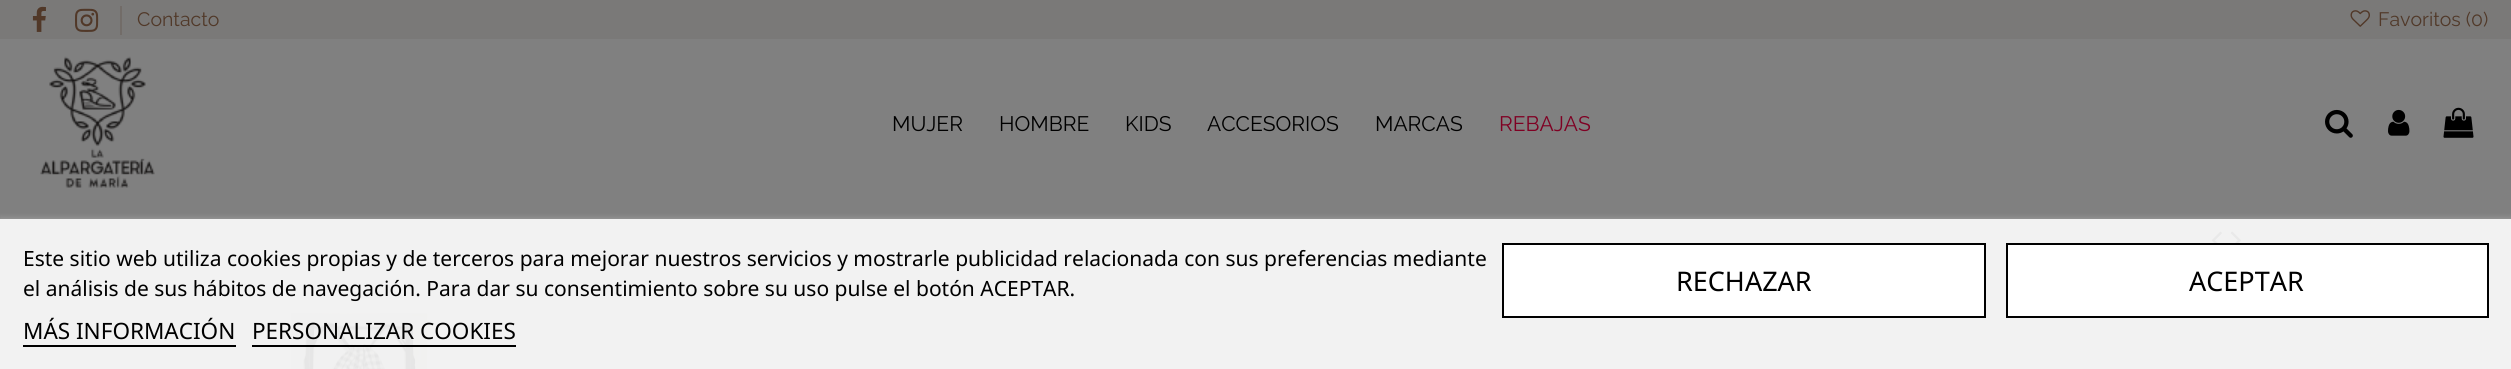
import math
import cairocffi as cairo

surface = cairo.ImageSurface(cairo.FORMAT_RGB24, 2511, 369)
cr = cairo.Context(surface)
options = cairo.FontOptions()
options.set_hint_metrics(cairo.HINT_METRICS_OFF)
options.set_hint_style(cairo.HINT_STYLE_NONE)
cr.set_font_options(options)
cr.set_miter_limit(4)


def use_color(code):
    cr.set_source_rgb(*(v / 255 for v in bytes.fromhex(code[-6:])))


def round_rect(x, y, w, h, r):
    cr.new_sub_path()
    for i, (u, v) in enumerate([(x + w - r, y + h - r), (x + r, y + h - r), (x + r, y + r), (x + w - r, y + r)]):
        cr.arc(u, v, r, i * math.pi / 2, (i + 1) * math.pi / 2)
    cr.close_path()


def shadow(x, y, w, h, r, blur, alpha):
    cr.push_group_with_content(cairo.CONTENT_ALPHA)
    cr.set_operator(cairo.OPERATOR_SOURCE)
    for i in range(15, -16, -2):
        e = blur * i / 6
        if min(w, h) + 2 * e > 0:
            cr.set_source_rgba(0, 0, 0, alpha * math.erfc((i - 1) / 8.5) / 2)
            round_rect(x - e, y - e, w + 2 * e, h + 2 * e, max(0, min(r + e + blur * .6, min(w, h) / 2 + e)))
            cr.fill()
    cr.mask(cr.pop_group())


def picture(path, x, y, w, h):
    cr.save()
    cr.set_source_surface(cairo.ImageSurface.create_from_png(path), x, y)
    cr.rectangle(x, y, w, h)
    cr.fill()
    cr.restore()


use_color("#808080")
cr.paint()
use_color("#f2f2f2")
cr.rectangle(0, 219, 2511, 150)
cr.fill()
use_color("#7a7978")
cr.rectangle(0, 0, 2511, 39)
cr.fill()
picture("img1.png", 32, 6, 14, 26)
picture("img2.png", 75, 8, 24, 24)
use_color("#726c68")
cr.rectangle(120, 6, 2, 29)
cr.fill()
cr.select_font_face("Raleway Thin")
cr.set_font_size(19.5)
use_color("#513929")
cr.move_to(137, 26)
cr.show_text("Contacto")
picture("img3.png", 2350, 10, 20, 17)
cr.move_to(2378, 26)
cr.show_text("Favoritos (0)")
picture("img4.png", 40, 56, 115, 132)
cr.set_font_size(21)
use_color("#000000")
cr.move_to(892, 131)
cr.show_text("MUJER")
cr.move_to(999, 131)
cr.show_text("HOMBRE")
cr.move_to(1125, 131)
cr.show_text("KIDS")
cr.move_to(1207, 131)
cr.show_text("ACCESORIOS")
cr.move_to(1375, 131)
cr.show_text("MARCAS")
use_color("#7f0023")
cr.move_to(1499, 131)
cr.show_text("REBAJAS")
picture("img5.png", 2325, 109, 28, 29)
picture("img6.png", 2388, 109, 22, 27)
picture("img7.png", 2443, 107, 31, 31)
picture("img8.png", 2211, 231, 11, 12)
picture("img9.png", 2230, 231, 11, 12)
picture("img10.png", 291, 312, 137, 57)
cr.save()
cr.rectangle(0, 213, 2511, 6)
cr.clip()
use_color("#c0c0c0")
shadow(0, 221, 2511, 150, 0, 4, 1)
cr.restore()
cr.select_font_face("Noto Sans")
use_color("#000000")
cr.move_to(23, 266)
cr.show_text("Este sitio web utiliza cookies propias y de terceros para mejorar nuestros servicios y mostrarle publicidad relacionada con sus preferencias mediante")
cr.move_to(23, 296)
cr.show_text("el análisis de sus hábitos de navegación. Para dar su consentimiento sobre su uso pulse el botón ACEPTAR.")
cr.set_font_size(22.5)
cr.move_to(23, 339)
cr.show_text("MÁS INFORMACIÓN")
cr.rectangle(23, 345, 213, 2)
cr.fill()
cr.move_to(252, 339)
cr.show_text("PERSONALIZAR COOKIES")
cr.rectangle(252, 345, 264, 2)
cr.fill()
use_color("#ffffff")
cr.rectangle(1503, 244, 482, 73)
cr.fill_preserve()
use_color("#000000")
cr.stroke()
cr.set_font_size(27)
cr.move_to(1676, 291)
cr.show_text("RECHAZAR")
use_color("#ffffff")
cr.rectangle(2007, 244, 481, 73)
cr.fill_preserve()
use_color("#000000")
cr.stroke()
cr.move_to(2189, 291)
cr.show_text("ACEPTAR")
surface.write_to_png("result.png")
